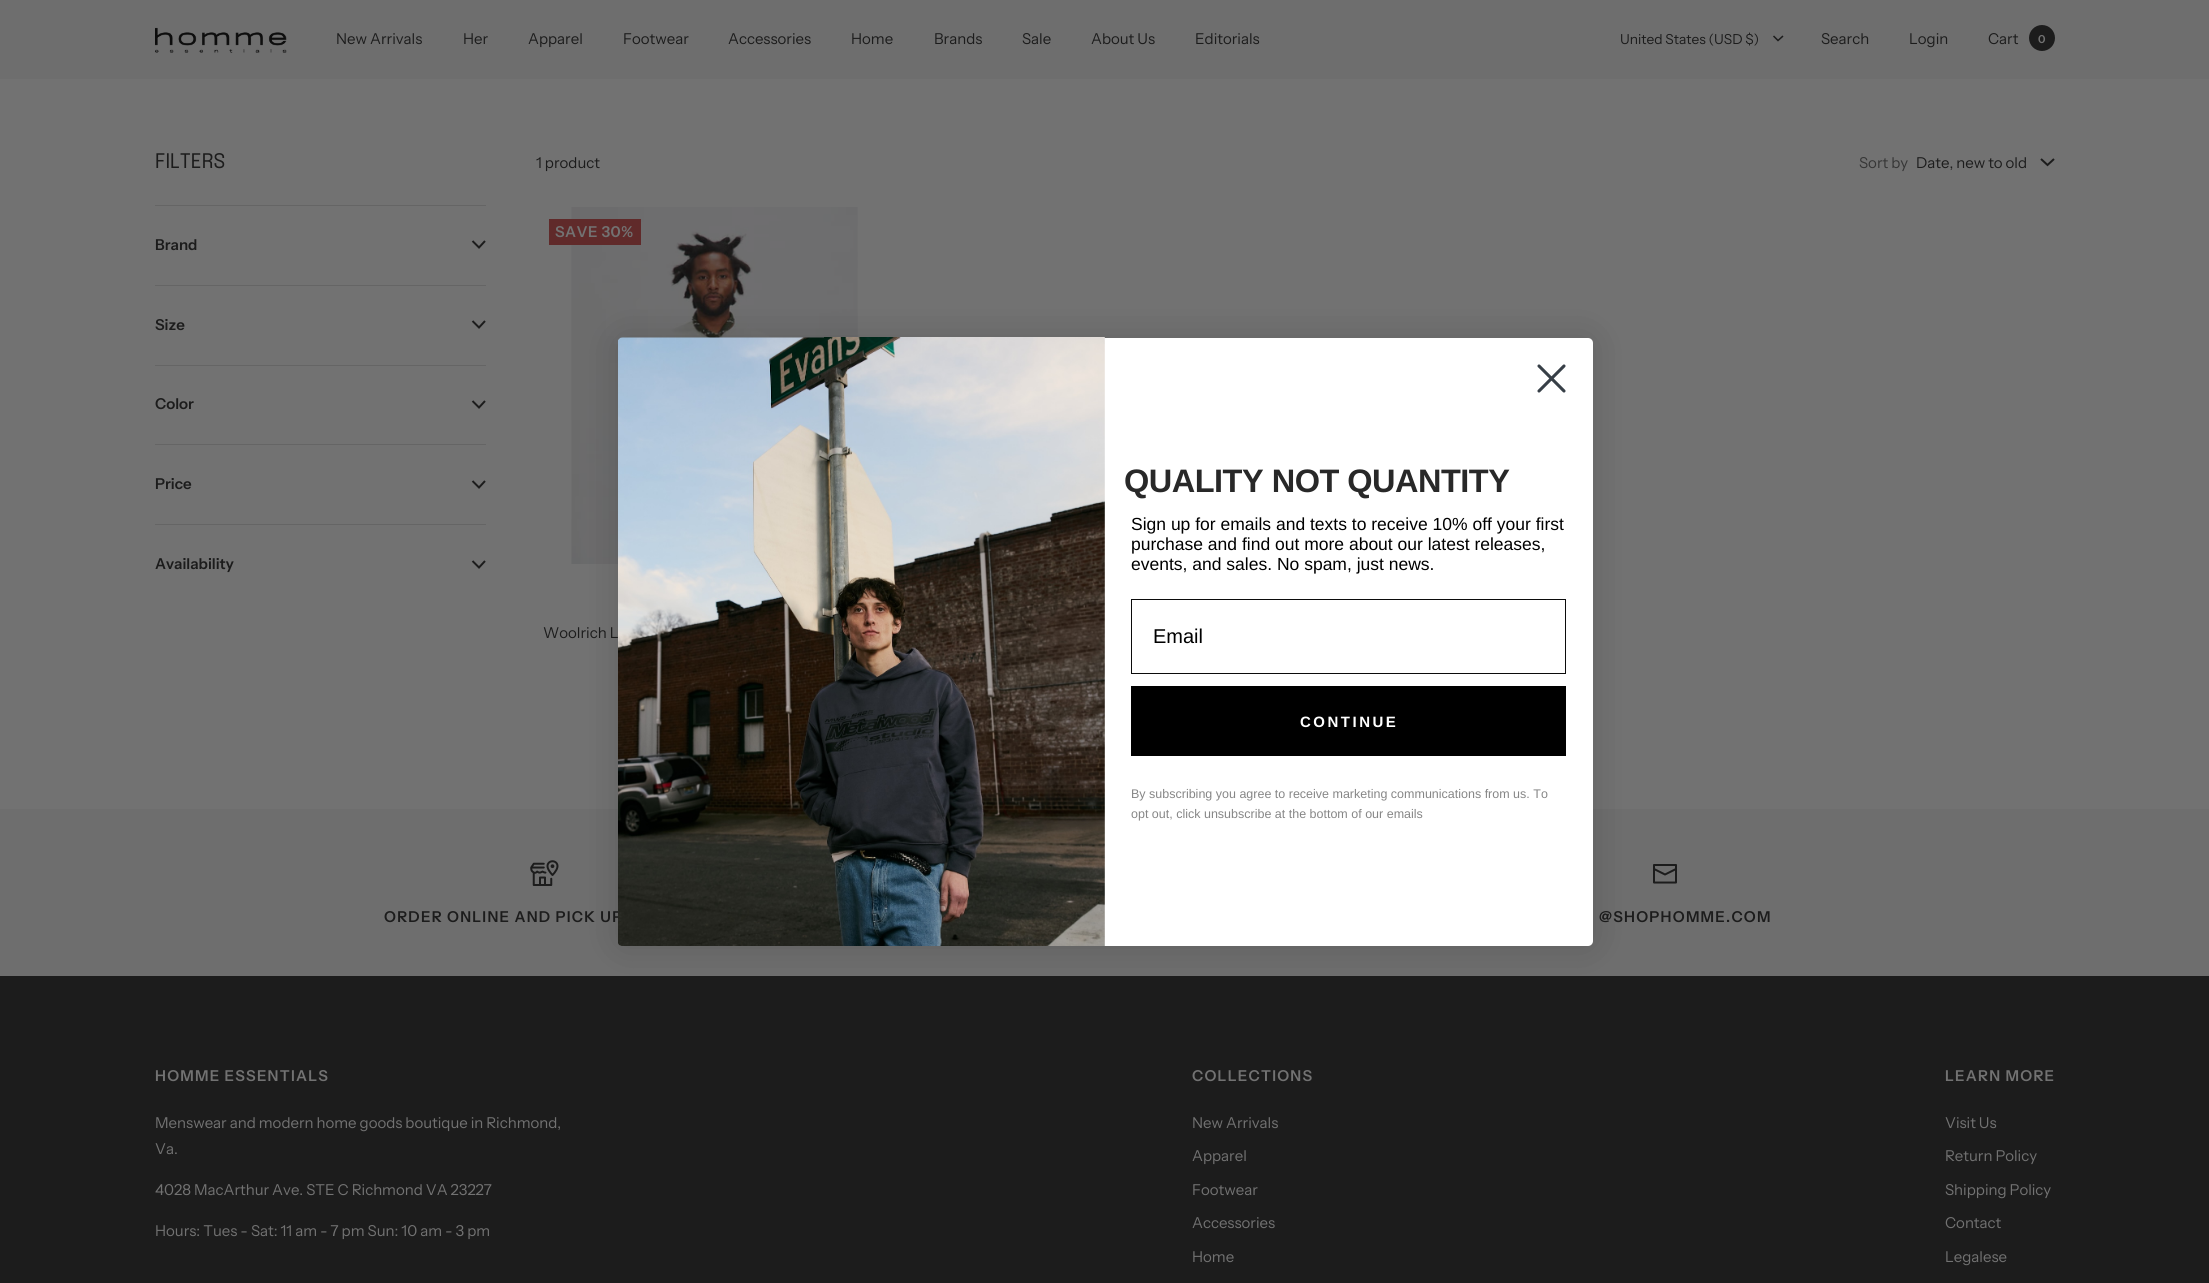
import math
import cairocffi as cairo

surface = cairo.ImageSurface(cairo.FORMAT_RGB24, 2209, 1283)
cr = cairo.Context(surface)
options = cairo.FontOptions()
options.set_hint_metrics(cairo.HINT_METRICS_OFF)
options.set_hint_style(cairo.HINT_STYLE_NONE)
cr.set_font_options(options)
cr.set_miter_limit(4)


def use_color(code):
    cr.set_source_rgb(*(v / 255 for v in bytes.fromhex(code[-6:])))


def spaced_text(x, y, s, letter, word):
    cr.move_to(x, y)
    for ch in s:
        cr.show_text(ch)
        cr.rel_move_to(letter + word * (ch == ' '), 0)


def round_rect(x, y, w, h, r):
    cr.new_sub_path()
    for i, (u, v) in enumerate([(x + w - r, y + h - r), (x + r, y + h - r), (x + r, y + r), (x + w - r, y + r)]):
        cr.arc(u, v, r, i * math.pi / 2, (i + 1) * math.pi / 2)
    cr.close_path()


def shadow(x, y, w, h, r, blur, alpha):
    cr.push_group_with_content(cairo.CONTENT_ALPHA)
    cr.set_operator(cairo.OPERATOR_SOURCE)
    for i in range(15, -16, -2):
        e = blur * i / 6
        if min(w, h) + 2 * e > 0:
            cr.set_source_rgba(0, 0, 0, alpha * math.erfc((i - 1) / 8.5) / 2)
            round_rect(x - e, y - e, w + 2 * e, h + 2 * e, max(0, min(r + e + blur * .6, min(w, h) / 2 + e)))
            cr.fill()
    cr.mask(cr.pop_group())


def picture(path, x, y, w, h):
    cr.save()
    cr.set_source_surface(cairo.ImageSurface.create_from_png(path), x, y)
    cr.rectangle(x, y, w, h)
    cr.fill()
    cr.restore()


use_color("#727272")
cr.paint()
use_color("#6e6e6e")
cr.rectangle(0, 0, 2209, 79)
cr.fill()
picture("img1.png", 155, 27, 132, 26)
cr.select_font_face("Instrument Sans")
cr.set_font_size(15)
use_color("#1c1c1c")
cr.move_to(336, 44)
cr.show_text("New Arrivals")
cr.move_to(463, 44)
cr.show_text("Her")
cr.move_to(528, 44)
cr.show_text("Apparel")
cr.move_to(623, 44)
cr.show_text("Footwear")
cr.move_to(728, 44)
cr.show_text("Accessories")
cr.move_to(851, 44)
cr.show_text("Home")
cr.move_to(934, 44)
cr.show_text("Brands")
cr.move_to(1022, 44)
cr.show_text("Sale")
cr.move_to(1091, 44)
cr.show_text("About Us")
cr.move_to(1195, 44)
cr.show_text("Editorials")
cr.set_font_size(13.75)
cr.move_to(1620, 44)
cr.show_text("United States (USD $)")
cr.new_path()
cr.move_to(1773.5, 36)
cr.line_to(1778, 40.5)
cr.line_to(1783, 36)
cr.set_line_width(1.5)
cr.stroke()
cr.set_font_size(15)
cr.move_to(1821, 44)
cr.show_text("Search")
cr.move_to(1909, 44)
cr.show_text("Login")
cr.move_to(1988, 44)
cr.show_text("Cart")
cr.new_path()
cr.arc(2042, 38, 13, 0, 2 * math.pi)
cr.fill()
cr.select_font_face("Instrument Sans SemiBold")
cr.set_font_size(11)
use_color("#727272")
cr.move_to(2038, 43)
cr.show_text("0")
use_color("#656565")
cr.rectangle(155, 205, 331, 1)
cr.fill()
cr.select_font_face("Epilogue")
cr.set_font_size(20)
use_color("#1c1c1c")
cr.move_to(155, 168)
cr.show_text("FILTERS")
cr.select_font_face("Instrument Sans SemiBold")
cr.set_font_size(15)
cr.move_to(155, 250)
cr.show_text("Brand")
cr.new_path()
cr.move_to(472.5, 241)
cr.line_to(479, 247.5)
cr.line_to(485, 241)
cr.set_line_width(2)
cr.stroke()
use_color("#656565")
cr.rectangle(155, 285, 331, 1)
cr.fill()
use_color("#1c1c1c")
cr.move_to(155, 330)
cr.show_text("Size")
cr.new_path()
cr.move_to(472.5, 321)
cr.line_to(479, 327.5)
cr.line_to(485, 321)
cr.stroke()
use_color("#656565")
cr.rectangle(155, 365, 331, 1)
cr.fill()
use_color("#1c1c1c")
cr.move_to(155, 409)
cr.show_text("Color")
cr.new_path()
cr.move_to(472.5, 401)
cr.line_to(479, 407.5)
cr.line_to(485, 401)
cr.stroke()
use_color("#656565")
cr.rectangle(155, 444, 331, 1)
cr.fill()
use_color("#1c1c1c")
cr.move_to(155, 489)
cr.show_text("Price")
cr.new_path()
cr.move_to(472.5, 481)
cr.line_to(479, 487.5)
cr.line_to(485, 481)
cr.stroke()
use_color("#656565")
cr.rectangle(155, 524, 331, 1)
cr.fill()
use_color("#1c1c1c")
cr.move_to(155, 569)
cr.show_text("Availability")
cr.new_path()
cr.move_to(472.5, 561)
cr.line_to(479, 567.5)
cr.line_to(485, 561)
cr.stroke()
cr.select_font_face("Instrument Sans")
cr.move_to(536, 168)
cr.show_text("1 product")
use_color("#363636")
cr.move_to(1859, 168)
cr.show_text("Sort by")
use_color("#1c1c1c")
cr.move_to(1916, 168)
cr.show_text("Date, new to old")
cr.new_path()
cr.move_to(2041, 159)
cr.line_to(2047.5, 165)
cr.line_to(2054, 159)
cr.stroke()
picture("img2.png", 571, 207, 287, 357)
use_color("#602a2a")
cr.rectangle(549, 219, 92, 26)
cr.fill()
cr.select_font_face("Instrument Sans SemiBold")
use_color("#727272")
spaced_text(555, 237, "SAVE 30%", 0.5, 0)
cr.select_font_face("Instrument Sans")
use_color("#1c1c1c")
cr.move_to(543, 638)
cr.show_text("Woolrich L")
use_color("#6e6e6e")
cr.rectangle(0, 809, 2209, 167)
cr.fill()
picture("img3.png", 530, 860, 29, 26)
cr.select_font_face("Instrument Sans SemiBold")
use_color("#1c1c1c")
spaced_text(384, 922, "ORDER ONLINE AND PICK UP", 1.25, 0)
cr.new_path()
cr.move_to(1676, 869)
cr.line_to(1676, 865)
cr.line_to(1654, 865)
cr.line_to(1654, 869)
cr.move_to(1676, 869)
cr.line_to(1676, 882.5)
cr.line_to(1654, 882.5)
cr.line_to(1654, 869)
cr.move_to(1676, 869)
cr.line_to(1665, 874.5)
cr.line_to(1654, 869)
cr.set_line_cap(cairo.LINE_CAP_ROUND)
cr.set_line_join(cairo.LINE_JOIN_ROUND)
cr.stroke()
spaced_text(1599, 922, "@SHOPHOMME.COM", 1.25, 0)
cr.rectangle(0, 976, 2209, 307)
cr.fill()
use_color("#000000")
shadow(618, 338, 975, 608, 5, 19, 0.15)
use_color("#ffffff")
round_rect(618, 338, 975, 608, 5)
cr.fill()
cr.new_path()
cr.move_to(1539, 366)
cr.line_to(1564, 391)
cr.move_to(1539, 391)
cr.line_to(1564, 366)
cr.close_path()
use_color("#373f47")
cr.set_line_width(3.1)
cr.stroke()
picture("img4.png", 618, 337, 487, 609)
cr.select_font_face("Liberation Sans", cairo.FONT_SLANT_NORMAL, cairo.FONT_WEIGHT_BOLD)
cr.set_font_size(32.5)
use_color("#282828")
spaced_text(1124, 492, "QUALITY NOT QUANTITY", -0.5, 0)
cr.select_font_face("Liberation Sans")
cr.set_font_size(17.5)
use_color("#000000")
cr.move_to(1131, 530)
cr.show_text("Sign up for emails and texts to receive 10% off your first")
cr.move_to(1131, 550)
cr.show_text("purchase and find out more about our latest releases,")
cr.move_to(1131, 570)
cr.show_text("events, and sales. No spam, just news.")
cr.rectangle(1131.5, 599.5, 434, 74)
use_color("#0b0b0b")
cr.set_line_width(1)
cr.set_line_cap(cairo.LINE_CAP_BUTT)
cr.set_line_join(cairo.LINE_JOIN_MITER)
cr.stroke()
cr.set_font_size(20)
use_color("#000000")
cr.move_to(1153, 643)
cr.show_text("Email")
cr.rectangle(1131, 686, 435, 70)
cr.fill()
cr.select_font_face("Liberation Sans", cairo.FONT_SLANT_NORMAL, cairo.FONT_WEIGHT_BOLD)
cr.set_font_size(15)
use_color("#ffffff")
spaced_text(1300, 727, "CONTINUE", 2.5, 0)
cr.select_font_face("Liberation Sans")
cr.set_font_size(12.5)
use_color("#868686")
cr.move_to(1131, 798)
cr.show_text("By subscribing you agree to receive marketing communications from us. To")
cr.move_to(1131, 818)
cr.show_text("opt out, click unsubscribe at the bottom of our emails")
cr.select_font_face("Instrument Sans SemiBold")
cr.set_font_size(15)
use_color("#727272")
spaced_text(155, 1081, "HOMME ESSENTIALS", 1.25, 0)
cr.select_font_face("Instrument Sans")
cr.move_to(155, 1128)
cr.show_text("Menswear and modern home goods boutique in Richmond,")
cr.move_to(155, 1154)
cr.show_text("Va.")
cr.move_to(155, 1195)
cr.show_text("4028 MacArthur Ave. STE C Richmond VA 23227")
cr.move_to(155, 1236)
cr.show_text("Hours: Tues - Sat: 11 am - 7 pm Sun: 10 am - 3 pm")
cr.select_font_face("Instrument Sans SemiBold")
spaced_text(1192, 1081, "COLLECTIONS", 1.25, 0)
cr.select_font_face("Instrument Sans")
cr.move_to(1192, 1128)
cr.show_text("New Arrivals")
cr.move_to(1192, 1161)
cr.show_text("Apparel")
cr.move_to(1192, 1195)
cr.show_text("Footwear")
cr.move_to(1192, 1228)
cr.show_text("Accessories")
cr.move_to(1192, 1262)
cr.show_text("Home")
cr.select_font_face("Instrument Sans SemiBold")
spaced_text(1945, 1081, "LEARN MORE", 1.25, 0)
cr.select_font_face("Instrument Sans")
cr.move_to(1945, 1128)
cr.show_text("Visit Us")
cr.move_to(1945, 1161)
cr.show_text("Return Policy")
cr.move_to(1945, 1195)
cr.show_text("Shipping Policy")
cr.move_to(1945, 1228)
cr.show_text("Contact")
cr.move_to(1945, 1262)
cr.show_text("Legalese")
surface.write_to_png("result.png")
